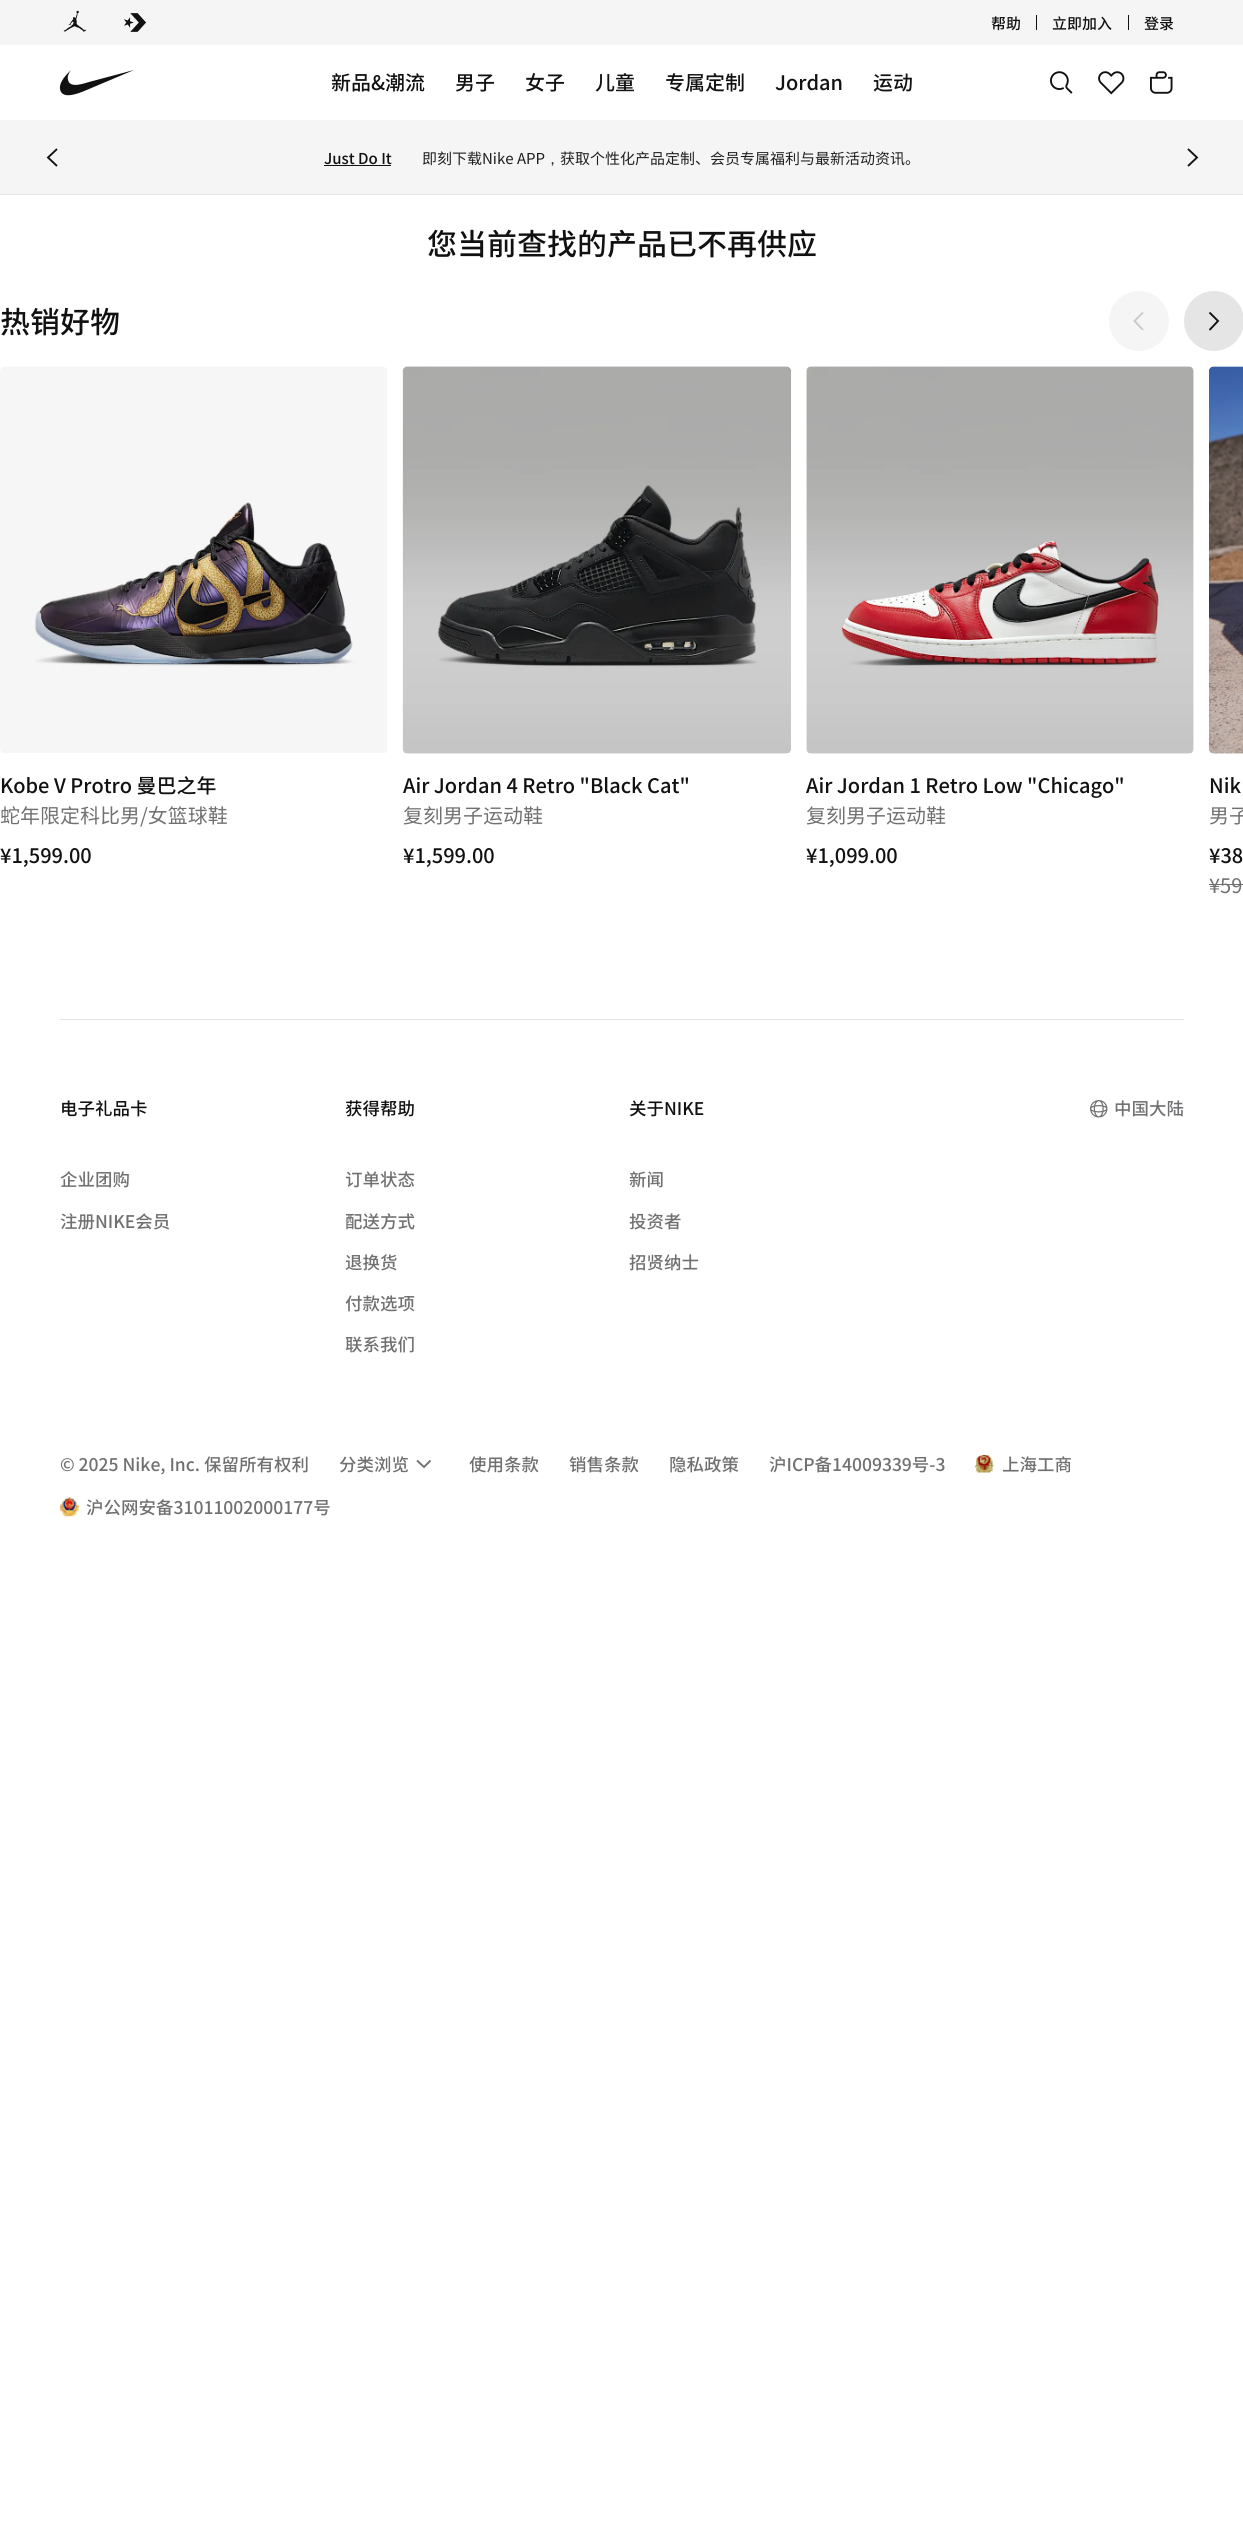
import math
import cairocffi as cairo

surface = cairo.ImageSurface(cairo.FORMAT_RGB24, 1243, 2542)
cr = cairo.Context(surface)
options = cairo.FontOptions()
options.set_hint_metrics(cairo.HINT_METRICS_OFF)
options.set_hint_style(cairo.HINT_STYLE_NONE)
cr.set_font_options(options)
cr.set_miter_limit(4)


def use_color(code):
    cr.set_source_rgb(*(v / 255 for v in bytes.fromhex(code[-6:])))


def picture(path, x, y, w, h):
    cr.save()
    cr.set_source_surface(cairo.ImageSurface.create_from_png(path), x, y)
    cr.rectangle(x, y, w, h)
    cr.fill()
    cr.restore()


use_color("#ffffff")
cr.paint()
use_color("#f5f5f5")
cr.rectangle(0, 0, 1243, 45)
cr.fill()
picture("img1.png", 63, 10, 24, 22)
picture("img2.png", 124, 13, 22, 19)
cr.select_font_face("Noto Sans SC Medium")
cr.set_font_size(15)
use_color("#111111")
cr.move_to(991, 29)
cr.show_text("帮助")
cr.rectangle(1036, 15, 1, 15)
cr.fill()
cr.move_to(1052, 29)
cr.show_text("立即加入")
cr.rectangle(1128, 15, 1, 15)
cr.fill()
cr.move_to(1144, 29)
cr.show_text("登录")
cr.set_fill_rule(cairo.FILL_RULE_EVEN_ODD)
cr.new_path()
cr.move_to(134, 70)
cr.line_to(89, 89)
cr.curve_to(84, 91, 62, 102, 60, 89)
cr.curve_to(59, 82, 66, 75, 71, 70)
cr.curve_to(69, 73, 67, 76, 68, 80)
cr.curve_to(70, 89, 85, 83, 89, 82)
cr.close_path()
cr.fill()
cr.set_font_size(20)
cr.move_to(331, 90)
cr.show_text("新品&潮流")
cr.move_to(455, 90)
cr.show_text("男子")
cr.move_to(525, 90)
cr.show_text("女子")
cr.move_to(595, 90)
cr.show_text("儿童")
cr.move_to(665, 90)
cr.show_text("专属定制")
cr.move_to(775, 90)
cr.show_text("Jordan")
cr.move_to(873, 90)
cr.show_text("运动")
picture("img3.png", 1050, 71, 23, 23)
picture("img4.png", 1098, 71, 27, 24)
picture("img5.png", 1150, 71, 23, 23)
use_color("#f5f5f5")
cr.rectangle(0, 120, 1243, 74)
cr.fill()
cr.new_path()
cr.move_to(57, 166)
cr.line_to(48, 157.5)
cr.line_to(57, 149)
use_color("#111111")
cr.set_line_width(1.9)
cr.stroke()
use_color("#e5e5e5")
cr.rectangle(0, 194, 1243, 1)
cr.fill()
cr.set_font_size(15)
use_color("#111111")
cr.move_to(324, 164)
cr.show_text("Just Do It")
cr.rectangle(324, 165, 67, 1)
cr.fill()
cr.select_font_face("Noto Sans SC")
use_color("#1f1f21")
cr.move_to(422, 164)
cr.show_text("即刻下载Nike APP")
cr.select_font_face("WenQuanYi Zen Hei Medium")
cr.move_to(545, 164)
cr.show_text("，")
cr.select_font_face("Noto Sans SC")
cr.move_to(560, 164)
cr.show_text("获取个性化产品定制、会员专属福利与最新活动资讯。")
cr.new_path()
cr.move_to(1188, 166)
cr.line_to(1197, 157.5)
cr.line_to(1188, 149)
use_color("#111111")
cr.stroke()
cr.select_font_face("Noto Sans SC Medium")
cr.set_font_size(30)
cr.move_to(427, 255)
cr.show_text("您当前查找的产品已不再供应")
cr.move_to(0, 333)
cr.show_text("热销好物")
use_color("#f5f5f5")
cr.new_path()
cr.arc(1139, 321, 30, 0, 2 * math.pi)
cr.fill()
cr.new_path()
cr.move_to(1143, 330)
cr.line_to(1134.5, 321)
cr.line_to(1143, 312.5)
use_color("#cacacb")
cr.stroke()
use_color("#e5e5e5")
cr.arc(1214, 321, 30, 0, 2 * math.pi)
cr.fill()
cr.new_path()
cr.move_to(1209.5, 330)
cr.line_to(1218, 321)
cr.line_to(1209.5, 312.5)
use_color("#111111")
cr.stroke()
picture("img6.png", 0, 366, 387, 387)
cr.set_font_size(20)
cr.move_to(0, 793)
cr.show_text("Kobe V Protro 曼巴之年")
cr.select_font_face("Noto Sans SC")
use_color("#707072")
cr.move_to(0, 823)
cr.show_text("蛇年限定科比男/女篮球鞋")
cr.select_font_face("Noto Sans SC Medium")
use_color("#111111")
cr.move_to(0, 863)
cr.show_text("¥1,599.00")
picture("img7.png", 402, 366, 389, 388)
cr.move_to(403, 793)
cr.show_text("Air Jordan 4 Retro \"Black Cat\"")
cr.select_font_face("Noto Sans SC")
use_color("#707072")
cr.move_to(403, 823)
cr.show_text("复刻男子运动鞋")
cr.select_font_face("Noto Sans SC Medium")
use_color("#111111")
cr.move_to(403, 863)
cr.show_text("¥1,599.00")
picture("img8.png", 806, 366, 388, 388)
cr.move_to(806, 793)
cr.show_text("Air Jordan 1 Retro Low \"Chicago\"")
cr.select_font_face("Noto Sans SC")
use_color("#707072")
cr.move_to(806, 823)
cr.show_text("复刻男子运动鞋")
cr.select_font_face("Noto Sans SC Medium")
use_color("#111111")
cr.move_to(806, 863)
cr.show_text("¥1,099.00")
picture("img9.png", 1209, 366, 34, 388)
cr.move_to(1209, 793)
cr.show_text("Nik")
cr.select_font_face("Noto Sans SC")
use_color("#707072")
cr.move_to(1209, 823)
cr.show_text("男子")
cr.select_font_face("Noto Sans SC Medium")
use_color("#111111")
cr.move_to(1209, 863)
cr.show_text("¥38")
cr.select_font_face("Noto Sans SC")
use_color("#707072")
cr.move_to(1209, 893)
cr.show_text("¥59")
cr.rectangle(1209, 884, 34, 1)
cr.fill()
use_color("#e5e5e5")
cr.rectangle(60, 1019, 1124, 1)
cr.fill()
cr.select_font_face("Noto Sans SC Medium")
cr.set_font_size(17.5)
use_color("#111111")
cr.move_to(60, 1115)
cr.show_text("电子礼品卡")
use_color("#707072")
cr.move_to(60, 1186)
cr.show_text("企业团购")
cr.move_to(60, 1228)
cr.show_text("注册NIKE会员")
use_color("#111111")
cr.move_to(345, 1115)
cr.show_text("获得帮助")
use_color("#707072")
cr.move_to(345, 1186)
cr.show_text("订单状态")
cr.move_to(345, 1228)
cr.show_text("配送方式")
cr.move_to(345, 1269)
cr.show_text("退换货")
cr.move_to(345, 1310)
cr.show_text("付款选项")
cr.move_to(345, 1351)
cr.show_text("联系我们")
use_color("#111111")
cr.move_to(629, 1115)
cr.show_text("关于NIKE")
use_color("#707072")
cr.move_to(629, 1186)
cr.show_text("新闻")
cr.move_to(629, 1228)
cr.show_text("投资者")
cr.move_to(629, 1269)
cr.show_text("招贤纳士")
picture("img10.png", 1090, 1100, 18, 18)
cr.move_to(1114, 1115)
cr.show_text("中国大陆")
cr.move_to(60, 1471)
cr.show_text("© 2025 Nike, Inc. 保留所有权利")
cr.move_to(339, 1471)
cr.show_text("分类浏览")
cr.new_path()
cr.move_to(430.5, 1460.5)
cr.line_to(424, 1467)
cr.line_to(417, 1460.5)
cr.stroke()
cr.move_to(469, 1471)
cr.show_text("使用条款")
cr.move_to(569, 1471)
cr.show_text("销售条款")
cr.move_to(669, 1471)
cr.show_text("隐私政策")
cr.move_to(769, 1471)
cr.show_text("沪ICP备14009339号-3")
picture("img11.png", 975, 1455, 19, 18)
cr.move_to(1002, 1471)
cr.show_text("上海工商")
picture("img12.png", 60, 1497, 19, 20)
cr.move_to(86, 1514)
cr.show_text("沪公网安备31011002000177号")
surface.write_to_png("result.png")
